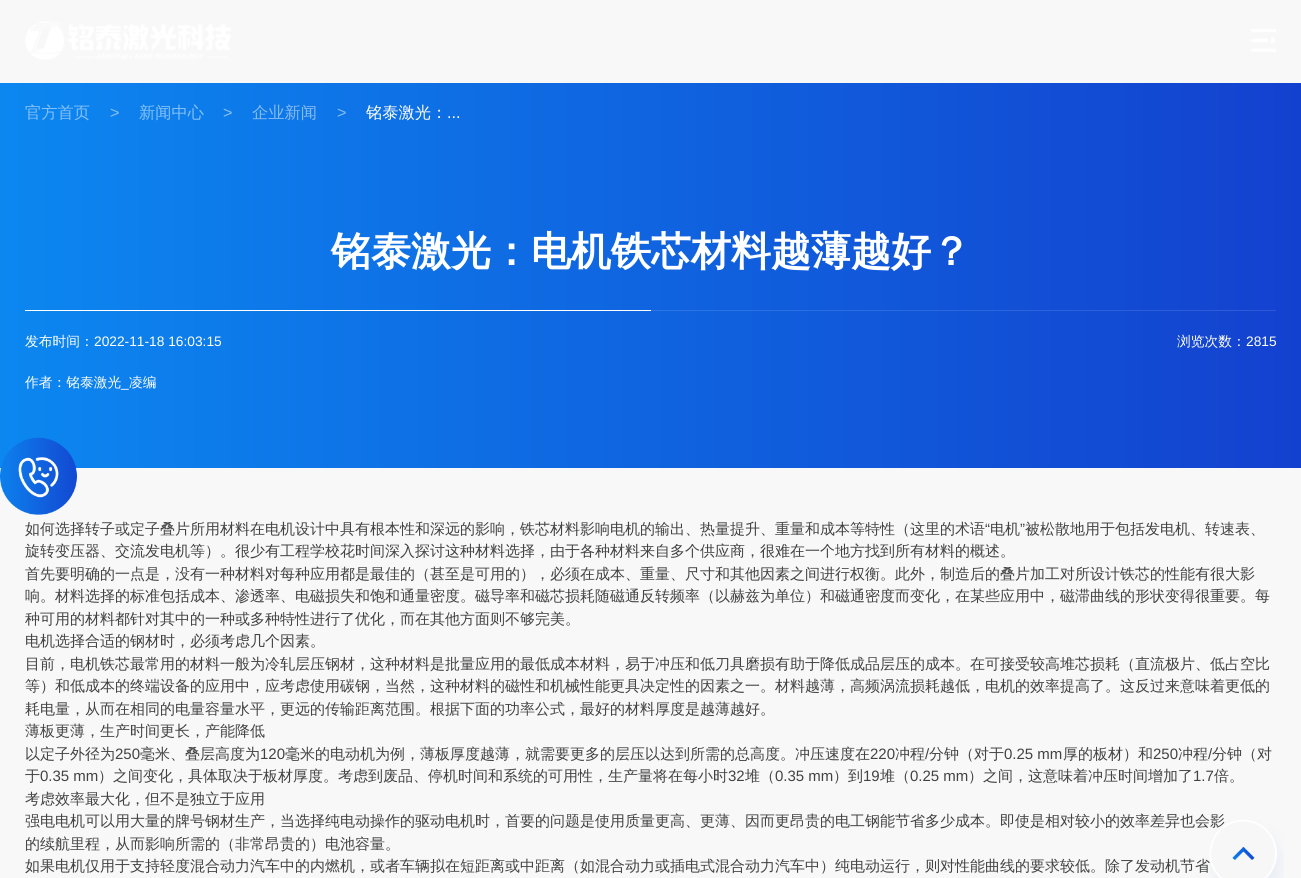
import math
import cairocffi as cairo

surface = cairo.ImageSurface(cairo.FORMAT_RGB24, 1301, 878)
cr = cairo.Context(surface)
options = cairo.FontOptions()
options.set_hint_metrics(cairo.HINT_METRICS_OFF)
options.set_hint_style(cairo.HINT_STYLE_NONE)
cr.set_font_options(options)
cr.set_miter_limit(4)


def use_color(code):
    cr.set_source_rgb(*(v / 255 for v in bytes.fromhex(code[-6:])))


def picture(path, x, y, w, h):
    cr.save()
    cr.set_source_surface(cairo.ImageSurface.create_from_png(path), x, y)
    cr.rectangle(x, y, w, h)
    cr.fill()
    cr.restore()


use_color("#f8f8f8")
cr.paint()
picture("img1.png", 25, 21, 206, 39)
picture("img2.png", 1251, 29, 25, 23)
gradient = cairo.LinearGradient(0, 234, 1301, 234)
gradient.add_color_stop_rgba(0, 0.047, 0.529, 0.941, 1)
gradient.add_color_stop_rgba(1, 0.075, 0.255, 0.812, 1)
cr.set_source(gradient)
cr.rectangle(0, 83, 1301, 385)
cr.fill()
gradient = cairo.LinearGradient(0, 234, 1301, 234)
gradient.add_color_stop_rgba(0, 0.161, 0.584, 0.949, 1)
gradient.add_color_stop_rgba(1, 0.184, 0.345, 0.835, 1)
cr.set_source(gradient)
cr.rectangle(651, 310, 625, 1)
cr.fill()
cr.select_font_face("WenQuanYi Zen Hei Medium")
cr.set_font_size(16.25)
use_color("#86c1f7")
cr.move_to(25, 118)
cr.show_text("官方首页")
cr.select_font_face("Liberation Sans")
cr.move_to(110, 118)
cr.show_text(">")
cr.select_font_face("WenQuanYi Zen Hei Medium")
cr.move_to(139, 118)
cr.show_text("新闻中心")
cr.select_font_face("Liberation Sans")
cr.move_to(223, 118)
cr.show_text(">")
cr.select_font_face("WenQuanYi Zen Hei Medium")
use_color("#86bbf4")
cr.move_to(252, 118)
cr.show_text("企业新闻")
cr.select_font_face("Liberation Sans")
cr.move_to(337, 118)
cr.show_text(">")
cr.select_font_face("WenQuanYi Zen Hei Medium")
use_color("#ffffff")
cr.move_to(366, 118)
cr.show_text("铭泰激光：")
cr.select_font_face("Liberation Sans")
cr.move_to(447, 118)
cr.show_text("...")
cr.select_font_face("WenQuanYi Zen Hei", cairo.FONT_SLANT_NORMAL, cairo.FONT_WEIGHT_BOLD)
cr.set_font_size(40)
cr.move_to(331, 265)
cr.show_text("铭泰激光：电机铁芯材料越薄越好？")
cr.rectangle(25, 310, 626, 1)
cr.fill()
cr.select_font_face("WenQuanYi Zen Hei Medium")
cr.set_font_size(13.75)
cr.move_to(25, 346)
cr.show_text("发布时间：")
cr.select_font_face("Liberation Sans")
cr.move_to(94, 346)
cr.show_text("2022-11-18 16:03:15")
cr.select_font_face("WenQuanYi Zen Hei Medium")
cr.move_to(25, 387)
cr.show_text("作者：铭泰激光")
cr.select_font_face("Liberation Sans")
cr.move_to(121, 387)
cr.show_text("_")
cr.select_font_face("WenQuanYi Zen Hei Medium")
cr.move_to(129, 387)
cr.show_text("凌编")
cr.move_to(1177, 346)
cr.show_text("浏览次数：")
cr.select_font_face("Liberation Sans")
cr.move_to(1246, 346)
cr.show_text("2815")
cr.select_font_face("WenQuanYi Zen Hei Medium")
cr.set_font_size(15)
use_color("#424242")
cr.move_to(25, 534)
cr.show_text("如何选择转子或定子叠片所用材料在电机设计中具有根本性和深远的影响，铁芯材料影响电机的输出、热量提升、重量和成本等特性（这里的术语")
cr.select_font_face("Liberation Sans")
cr.move_to(985, 534)
cr.show_text("“")
cr.select_font_face("WenQuanYi Zen Hei Medium")
cr.move_to(990, 534)
cr.show_text("电机")
cr.select_font_face("Liberation Sans")
cr.move_to(1020, 534)
cr.show_text("”")
cr.select_font_face("WenQuanYi Zen Hei Medium")
cr.move_to(1025, 534)
cr.show_text("被松散地用于包括发电机、转速表、")
cr.move_to(25, 556)
cr.show_text("旋转变压器、交流发电机等）。很少有工程学校花时间深入探讨这种材料选择，由于各种材料来自多个供应商，很难在一个地方找到所有材料的概述。")
cr.move_to(25, 579)
cr.show_text("首先要明确的一点是，没有一种材料对每种应用都是最佳的（甚至是可用的），必须在成本、重量、尺寸和其他因素之间进行权衡。此外，制造后的叠片加工对所设计铁芯的性能有很大影")
cr.move_to(25, 601)
cr.show_text("响。材料选择的标准包括成本、渗透率、电磁损失和饱和通量密度。磁导率和磁芯损耗随磁通反转频率（以赫兹为单位）和磁通密度而变化，在某些应用中，磁滞曲线的形状变得很重要。每")
cr.move_to(25, 624)
cr.show_text("种可用的材料都针对其中的一种或多种特性进行了优化，而在其他方面则不够完美。")
cr.move_to(25, 646)
cr.show_text("电机选择合适的钢材时，必须考虑几个因素。")
cr.move_to(25, 669)
cr.show_text("目前，电机铁芯最常用的材料一般为冷轧层压钢材，这种材料是批量应用的最低成本材料，易于冲压和低刀具磨损有助于降低成品层压的成本。在可接受较高堆芯损耗（直流极片、低占空比")
cr.move_to(25, 691)
cr.show_text("等）和低成本的终端设备的应用中，应考虑使用碳钢，当然，这种材料的磁性和机械性能更具决定性的因素之一。材料越薄，高频涡流损耗越低，电机的效率提高了。这反过来意味着更低的")
cr.move_to(25, 714)
cr.show_text("耗电量，从而在相同的电量容量水平，更远的传输距离范围。根据下面的功率公式，最好的材料厚度是越薄越好。")
cr.move_to(25, 736)
cr.show_text("薄板更薄，生产时间更长，产能降低")
cr.move_to(25, 759)
cr.show_text("以定子外径为")
cr.select_font_face("Liberation Sans")
cr.move_to(115, 759)
cr.show_text("250")
cr.select_font_face("WenQuanYi Zen Hei Medium")
cr.move_to(140, 759)
cr.show_text("毫米、叠层高度为")
cr.select_font_face("Liberation Sans")
cr.move_to(260, 759)
cr.show_text("120")
cr.select_font_face("WenQuanYi Zen Hei Medium")
cr.move_to(285, 759)
cr.show_text("毫米的电动机为例，薄板厚度越薄，就需要更多的层压以达到所需的总高度。冲压速度在")
cr.select_font_face("Liberation Sans")
cr.move_to(870, 759)
cr.show_text("220")
cr.select_font_face("WenQuanYi Zen Hei Medium")
cr.move_to(895, 759)
cr.show_text("冲程")
cr.select_font_face("Liberation Sans")
cr.move_to(925, 759)
cr.show_text("/")
cr.select_font_face("WenQuanYi Zen Hei Medium")
cr.move_to(929, 759)
cr.show_text("分钟（对于")
cr.select_font_face("Liberation Sans")
cr.move_to(1004, 759)
cr.show_text("0.25 mm")
cr.select_font_face("WenQuanYi Zen Hei Medium")
cr.move_to(1063, 759)
cr.show_text("厚的板材）和")
cr.select_font_face("Liberation Sans")
cr.move_to(1153, 759)
cr.show_text("250")
cr.select_font_face("WenQuanYi Zen Hei Medium")
cr.move_to(1178, 759)
cr.show_text("冲程")
cr.select_font_face("Liberation Sans")
cr.move_to(1208, 759)
cr.show_text("/")
cr.select_font_face("WenQuanYi Zen Hei Medium")
cr.move_to(1212, 759)
cr.show_text("分钟（对")
cr.move_to(25, 781)
cr.show_text("于")
cr.select_font_face("Liberation Sans")
cr.move_to(40, 781)
cr.show_text("0.35 mm")
cr.select_font_face("WenQuanYi Zen Hei Medium")
cr.move_to(98, 781)
cr.show_text("）之间变化，具体取决于板材厚度。考虑到废品、停机时间和系统的可用性，生产量将在每小时")
cr.select_font_face("Liberation Sans")
cr.move_to(728, 781)
cr.show_text("32")
cr.select_font_face("WenQuanYi Zen Hei Medium")
cr.move_to(745, 781)
cr.show_text("堆（")
cr.select_font_face("Liberation Sans")
cr.move_to(775, 781)
cr.show_text("0.35 mm")
cr.select_font_face("WenQuanYi Zen Hei Medium")
cr.move_to(833, 781)
cr.show_text("）到")
cr.select_font_face("Liberation Sans")
cr.move_to(863, 781)
cr.show_text("19")
cr.select_font_face("WenQuanYi Zen Hei Medium")
cr.move_to(880, 781)
cr.show_text("堆（")
cr.select_font_face("Liberation Sans")
cr.move_to(910, 781)
cr.show_text("0.25 mm")
cr.select_font_face("WenQuanYi Zen Hei Medium")
cr.move_to(968, 781)
cr.show_text("）之间，这意味着冲压时间增加了")
cr.select_font_face("Liberation Sans")
cr.move_to(1193, 781)
cr.show_text("1.7")
cr.select_font_face("WenQuanYi Zen Hei Medium")
cr.move_to(1214, 781)
cr.show_text("倍。")
cr.move_to(25, 804)
cr.show_text("考虑效率最大化，但不是独立于应用")
cr.move_to(25, 826)
cr.show_text("强电电机可以用大量的牌号钢材生产，当选择纯电动操作的驱动电机时，首要的问题是使用质量更高、更薄、因而更昂贵的电工钢能节省多少成本。即使是相对较小的效率差异也会影")
cr.move_to(25, 849)
cr.show_text("的续航里程，从而影响所需的（非常昂贵的）电池容量。")
cr.move_to(25, 871)
cr.show_text("如果电机仅用于支持轻度混合动力汽车中的内燃机，或者车辆拟在短距离或中距离（如混合动力或插电式混合动力汽车中）纯电动运行，则对性能曲线的要求较低。除了发动机节省")
picture("img3.png", 0, 437, 77, 78)
picture("img4.png", 1209, 819, 75, 59)
surface.write_to_png("result.png")
